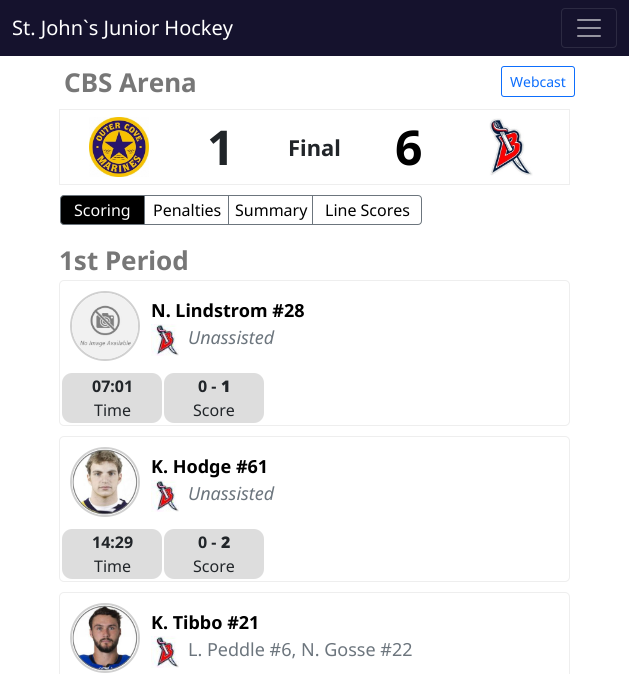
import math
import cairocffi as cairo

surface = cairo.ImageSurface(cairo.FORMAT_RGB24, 629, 674)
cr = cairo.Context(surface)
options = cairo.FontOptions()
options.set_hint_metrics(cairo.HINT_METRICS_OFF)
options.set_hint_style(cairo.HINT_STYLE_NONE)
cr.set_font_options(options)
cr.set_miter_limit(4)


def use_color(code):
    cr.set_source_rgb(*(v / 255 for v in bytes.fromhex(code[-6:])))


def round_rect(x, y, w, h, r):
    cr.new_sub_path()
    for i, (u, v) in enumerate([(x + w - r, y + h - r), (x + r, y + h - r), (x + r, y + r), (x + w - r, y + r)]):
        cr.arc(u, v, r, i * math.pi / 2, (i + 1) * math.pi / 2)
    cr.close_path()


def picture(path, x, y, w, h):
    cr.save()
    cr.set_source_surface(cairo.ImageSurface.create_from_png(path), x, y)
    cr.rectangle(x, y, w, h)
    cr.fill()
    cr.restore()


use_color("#ffffff")
cr.paint()
use_color("#15122d")
cr.rectangle(0, 0, 629, 56)
cr.fill()
cr.select_font_face("Noto Sans")
cr.set_font_size(20)
use_color("#ffffff")
cr.move_to(12, 35)
cr.show_text("St. John`s Junior Hockey")
round_rect(561.5, 8.5, 55, 39, 3.5)
use_color("#2c2a42")
cr.set_line_width(1)
cr.stroke()
picture("img1.png", 577, 19, 24, 18)
cr.select_font_face("Noto Sans", cairo.FONT_SLANT_NORMAL, cairo.FONT_WEIGHT_BOLD)
cr.set_font_size(26)
use_color("#777777")
cr.move_to(64, 92)
cr.show_text("CBS Arena")
round_rect(501.5, 66.5, 73, 30, 2.5)
use_color("#0d6efd")
cr.stroke()
cr.select_font_face("Noto Sans")
cr.set_font_size(14)
cr.move_to(510, 87)
cr.show_text("Webcast")
cr.rectangle(59.5, 109.5, 510, 75)
use_color("#eeeeee")
cr.stroke()
picture("img2.png", 89, 117, 60, 60)
cr.select_font_face("Noto Sans", cairo.FONT_SLANT_NORMAL, cairo.FONT_WEIGHT_BOLD)
cr.set_font_size(48)
use_color("#212529")
cr.move_to(207, 165)
cr.show_text("1")
cr.set_font_size(22)
cr.move_to(288, 156)
cr.show_text("Final")
cr.set_font_size(48)
use_color("#000000")
cr.move_to(395, 165)
cr.show_text("6")
picture("img3.png", 489, 118, 44, 58)
cr.new_path()
cr.move_to(64, 195.5)
cr.line_to(144.5, 195.5)
cr.line_to(144.5, 224.5)
cr.line_to(64, 224.5)
cr.curve_to(62, 224.5, 60.5, 223, 60.5, 221)
cr.line_to(60.5, 199)
cr.curve_to(60.5, 197, 62, 195.5, 64, 195.5)
cr.close_path()
cr.fill_preserve()
use_color("#6c757d")
cr.stroke()
cr.select_font_face("Noto Sans")
cr.set_font_size(16)
use_color("#ffffff")
cr.move_to(74, 216)
cr.show_text("Scoring")
cr.rectangle(144.5, 195.5, 84, 29)
use_color("#6c757d")
cr.stroke()
use_color("#000000")
cr.move_to(153, 216)
cr.show_text("Penalties")
cr.rectangle(228.5, 195.5, 84, 29)
use_color("#6c757d")
cr.stroke()
use_color("#000000")
cr.move_to(235, 216)
cr.show_text("Summary")
use_color("#ffffff")
cr.new_path()
cr.move_to(312.5, 195.5)
cr.line_to(418, 195.5)
cr.curve_to(420, 195.5, 421.5, 197, 421.5, 199)
cr.line_to(421.5, 221)
cr.curve_to(421.5, 223, 420, 224.5, 418, 224.5)
cr.line_to(312.5, 224.5)
cr.close_path()
cr.fill_preserve()
use_color("#6c757d")
cr.stroke()
use_color("#000000")
cr.move_to(325, 216)
cr.show_text("Line Scores")
cr.select_font_face("Noto Sans", cairo.FONT_SLANT_NORMAL, cairo.FONT_WEIGHT_BOLD)
cr.set_font_size(26)
use_color("#777777")
cr.move_to(59, 270)
cr.show_text("1st Period")
round_rect(59.5, 280.5, 510, 145, 4.5)
use_color("#eeeeee")
cr.stroke()
cr.arc(105, 326, 34, 0, 2 * math.pi)
use_color("#d0d0d0")
cr.set_line_width(2)
cr.stroke()
picture("img4.png", 72, 293, 66, 66)
cr.set_font_size(18)
use_color("#000000")
cr.move_to(151, 317)
cr.show_text("N. Lindstrom #28")
picture("img5.png", 151, 324, 28, 32)
cr.select_font_face("Noto Sans", cairo.FONT_SLANT_ITALIC)
use_color("#6c757d")
cr.move_to(188, 344)
cr.show_text("Unassisted")
use_color("#dddddd")
round_rect(62, 373, 100, 50, 10)
cr.fill()
cr.select_font_face("Noto Sans", cairo.FONT_SLANT_NORMAL, cairo.FONT_WEIGHT_BOLD)
cr.set_font_size(16)
use_color("#212529")
cr.move_to(92, 392)
cr.show_text("07:01")
cr.select_font_face("Noto Sans")
cr.move_to(94, 416)
cr.show_text("Time")
use_color("#dddddd")
round_rect(164, 373, 100, 50, 10)
cr.fill()
cr.select_font_face("Noto Sans", cairo.FONT_SLANT_NORMAL, cairo.FONT_WEIGHT_BOLD)
use_color("#212529")
cr.move_to(198, 392)
cr.show_text("0 -")
cr.select_font_face("Noto Sans Black")
cr.move_to(221, 392)
cr.show_text("1")
cr.select_font_face("Noto Sans")
cr.move_to(193, 416)
cr.show_text("Score")
round_rect(59.5, 436.5, 510, 145, 4.5)
use_color("#eeeeee")
cr.set_line_width(1)
cr.stroke()
cr.arc(105, 482, 34, 0, 2 * math.pi)
use_color("#d0d0d0")
cr.set_line_width(2)
cr.stroke()
picture("img6.png", 72, 449, 66, 66)
cr.select_font_face("Noto Sans", cairo.FONT_SLANT_NORMAL, cairo.FONT_WEIGHT_BOLD)
cr.set_font_size(18)
use_color("#000000")
cr.move_to(151, 473)
cr.show_text("K. Hodge #61")
picture("img5.png", 151, 480, 28, 32)
cr.select_font_face("Noto Sans", cairo.FONT_SLANT_ITALIC)
use_color("#6c757d")
cr.move_to(188, 500)
cr.show_text("Unassisted")
use_color("#dddddd")
round_rect(62, 529, 100, 50, 10)
cr.fill()
cr.select_font_face("Noto Sans", cairo.FONT_SLANT_NORMAL, cairo.FONT_WEIGHT_BOLD)
cr.set_font_size(16)
use_color("#212529")
cr.move_to(92, 548)
cr.show_text("14:29")
cr.select_font_face("Noto Sans")
cr.move_to(94, 572)
cr.show_text("Time")
use_color("#dddddd")
round_rect(164, 529, 100, 50, 10)
cr.fill()
cr.select_font_face("Noto Sans", cairo.FONT_SLANT_NORMAL, cairo.FONT_WEIGHT_BOLD)
use_color("#212529")
cr.move_to(198, 548)
cr.show_text("0 -")
cr.select_font_face("Noto Sans Black")
cr.move_to(221, 548)
cr.show_text("2")
cr.select_font_face("Noto Sans")
cr.move_to(193, 572)
cr.show_text("Score")
round_rect(59.5, 592.5, 510, 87, 4.5)
use_color("#eeeeee")
cr.set_line_width(1)
cr.stroke()
cr.arc(105, 638, 34, 0, 2 * math.pi)
use_color("#d0d0d0")
cr.set_line_width(2)
cr.stroke()
picture("img7.png", 72, 605, 66, 66)
cr.select_font_face("Noto Sans", cairo.FONT_SLANT_NORMAL, cairo.FONT_WEIGHT_BOLD)
cr.set_font_size(18)
use_color("#000000")
cr.move_to(151, 629)
cr.show_text("K. Tibbo #21")
picture("img5.png", 151, 636, 28, 32)
cr.select_font_face("Noto Sans")
use_color("#6c757d")
cr.move_to(188, 656)
cr.show_text("L. Peddle #6, N. Gosse #22")
surface.write_to_png("result.png")
